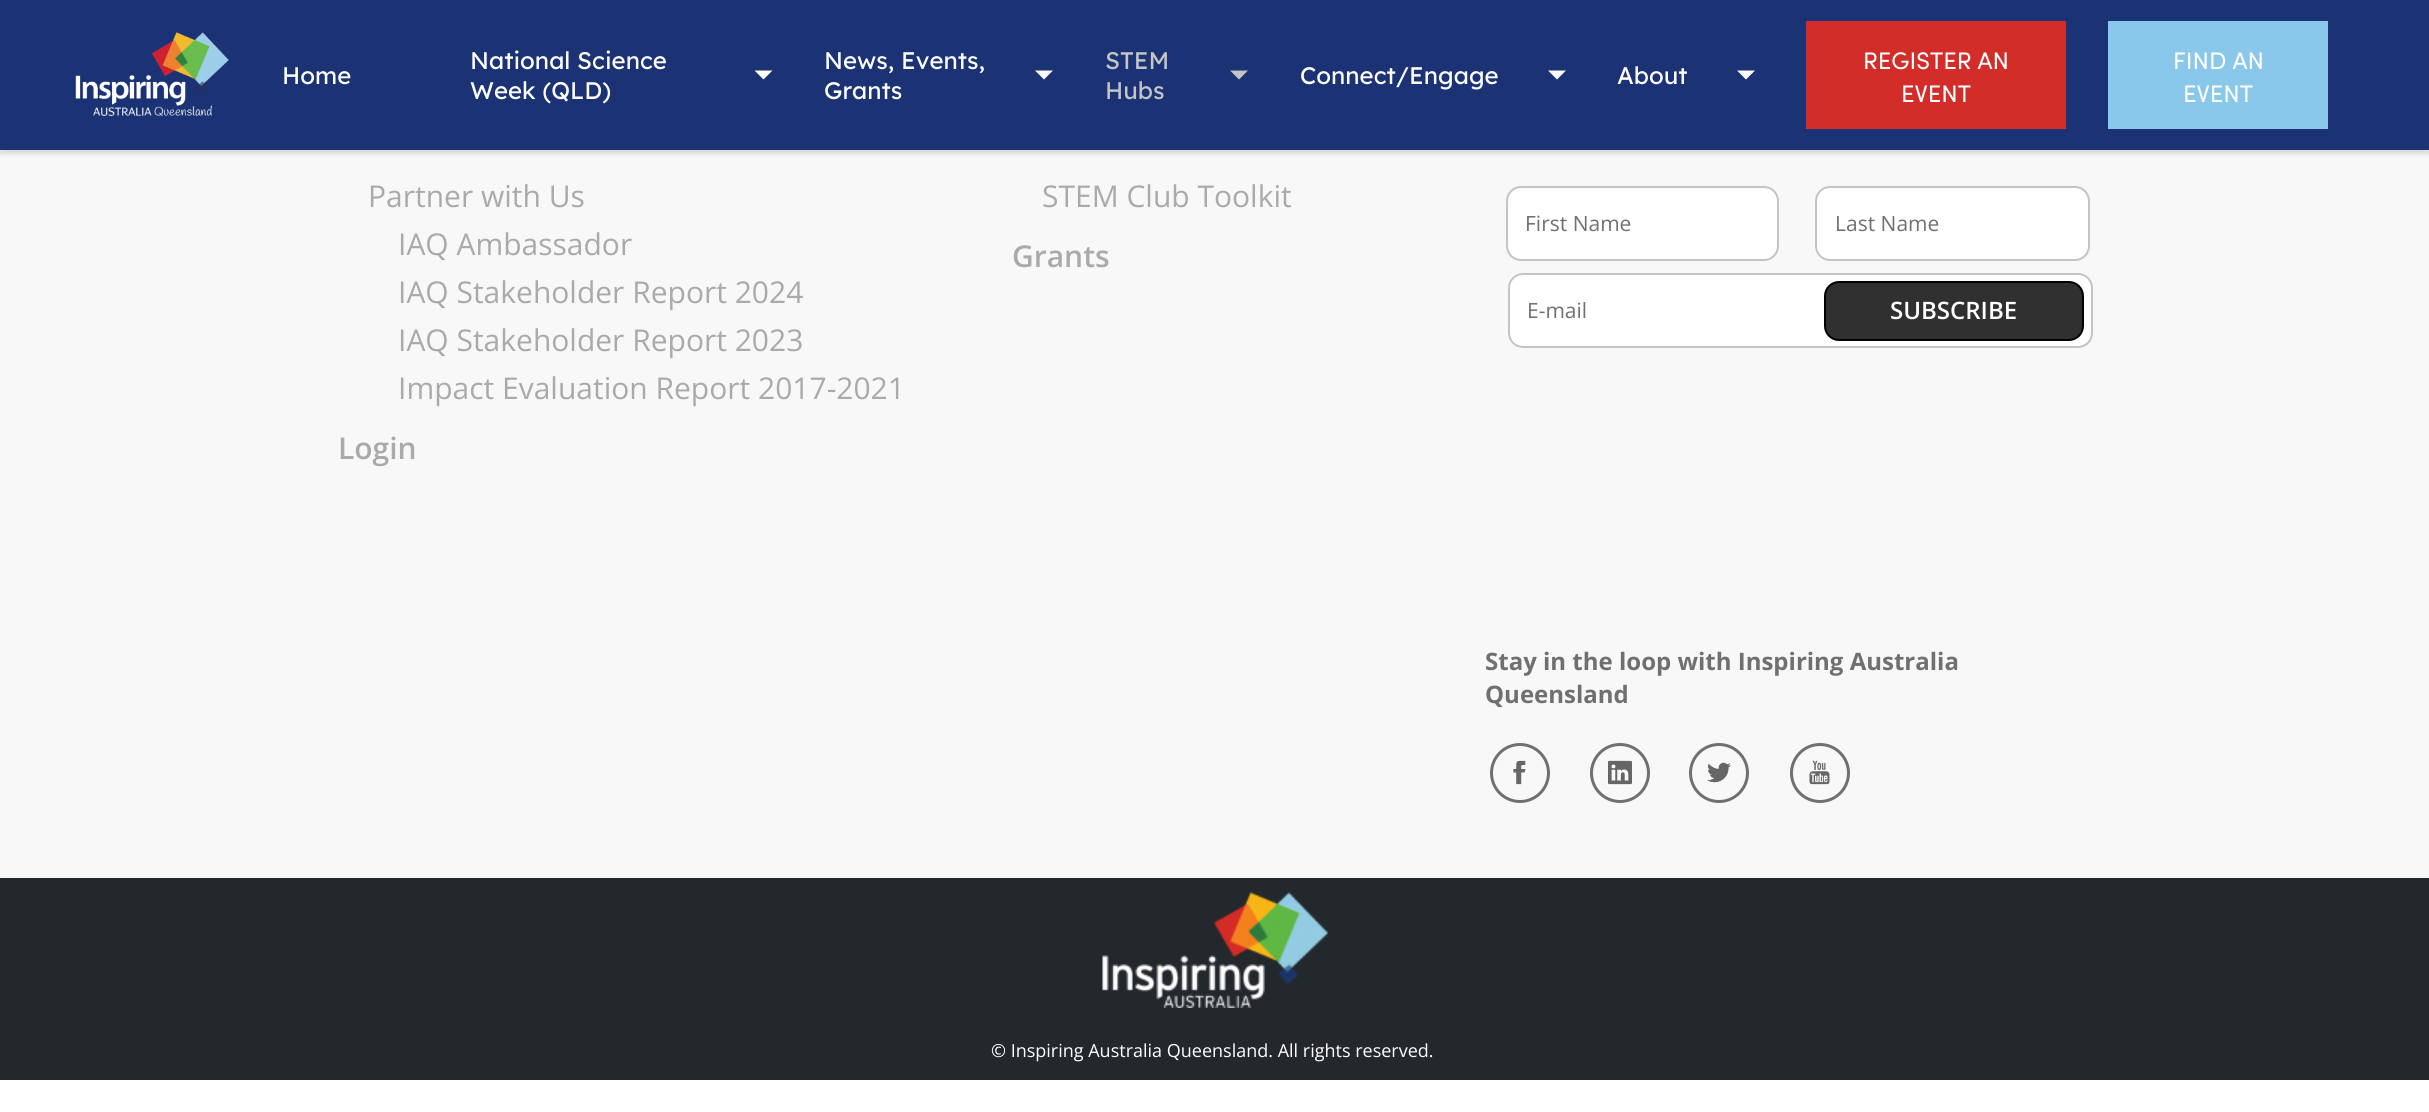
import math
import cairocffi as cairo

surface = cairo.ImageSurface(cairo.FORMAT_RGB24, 2429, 1112)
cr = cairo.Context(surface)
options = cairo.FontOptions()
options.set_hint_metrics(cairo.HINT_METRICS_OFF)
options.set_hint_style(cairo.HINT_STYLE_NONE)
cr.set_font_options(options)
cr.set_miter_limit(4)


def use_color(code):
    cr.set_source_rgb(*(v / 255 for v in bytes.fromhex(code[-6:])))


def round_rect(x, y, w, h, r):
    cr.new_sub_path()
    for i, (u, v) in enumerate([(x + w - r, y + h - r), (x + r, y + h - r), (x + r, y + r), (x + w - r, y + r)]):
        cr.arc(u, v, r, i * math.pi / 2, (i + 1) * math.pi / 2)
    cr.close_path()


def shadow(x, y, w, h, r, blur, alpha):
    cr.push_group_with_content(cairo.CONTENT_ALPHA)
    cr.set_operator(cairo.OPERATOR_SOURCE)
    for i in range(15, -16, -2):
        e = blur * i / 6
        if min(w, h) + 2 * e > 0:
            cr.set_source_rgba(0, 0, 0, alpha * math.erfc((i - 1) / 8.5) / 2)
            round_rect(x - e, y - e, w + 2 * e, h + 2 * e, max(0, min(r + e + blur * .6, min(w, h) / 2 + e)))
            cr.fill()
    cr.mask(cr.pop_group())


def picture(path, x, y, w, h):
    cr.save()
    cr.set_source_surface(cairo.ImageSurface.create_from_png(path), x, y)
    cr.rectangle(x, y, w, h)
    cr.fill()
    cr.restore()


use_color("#ffffff")
cr.paint()
use_color("#f8f8f8")
cr.rectangle(0, 150, 2429, 728)
cr.fill()
use_color("#000000")
shadow(0, 3, 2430, 150, 0, 3, 0.15)
use_color("#1b3275")
cr.rectangle(0, 0, 2429, 150)
cr.fill()
picture("img1.png", 75, 32, 154, 85)
cr.select_font_face("Lexend")
cr.set_font_size(24)
use_color("#ffffff")
cr.move_to(282, 84)
cr.show_text("Home")
cr.move_to(470, 69)
cr.show_text("National Science")
cr.new_path()
cr.move_to(754.5, 70.5)
cr.line_to(772.5, 70.5)
cr.line_to(763.5, 79.5)
cr.close_path()
cr.fill()
cr.move_to(470, 99)
cr.show_text("Week (QLD)")
cr.move_to(824, 69)
cr.show_text("News, Events,")
cr.new_path()
cr.move_to(1035, 70.5)
cr.line_to(1053, 70.5)
cr.line_to(1044, 79.5)
cr.close_path()
cr.fill()
cr.move_to(824, 99)
cr.show_text("Grants")
use_color("#c4c4c4")
cr.move_to(1105, 69)
cr.show_text("STEM")
cr.new_path()
cr.move_to(1230, 70.5)
cr.line_to(1248, 70.5)
cr.line_to(1239, 79.5)
cr.close_path()
cr.fill()
cr.move_to(1105, 99)
cr.show_text("Hubs")
use_color("#ffffff")
cr.move_to(1300, 84)
cr.show_text("Connect/Engage")
cr.new_path()
cr.move_to(1548, 70.5)
cr.line_to(1566, 70.5)
cr.line_to(1557, 79.5)
cr.close_path()
cr.fill()
cr.move_to(1617, 84)
cr.show_text("About")
cr.new_path()
cr.move_to(1737, 70.5)
cr.line_to(1755, 70.5)
cr.line_to(1746, 79.5)
cr.close_path()
cr.fill()
use_color("#d32d29")
cr.rectangle(1806, 21, 260, 108)
cr.fill()
cr.select_font_face("Sofia")
use_color("#ffffff")
cr.move_to(1863, 69)
cr.show_text("REGISTER AN")
cr.move_to(1901, 102)
cr.show_text("EVENT")
use_color("#8ac8eb")
cr.rectangle(2108, 21, 220, 108)
cr.fill()
use_color("#ffffff")
cr.move_to(2173, 69)
cr.show_text("FIND AN")
cr.move_to(2183, 102)
cr.show_text("EVENT")
cr.select_font_face("Open Sans")
cr.set_font_size(30)
use_color("#aaaaaa")
cr.move_to(368, 207)
cr.show_text("Partner with Us")
cr.move_to(398, 255)
cr.show_text("IAQ Ambassador")
cr.move_to(398, 303)
cr.show_text("IAQ Stakeholder Report 2024")
cr.move_to(398, 351)
cr.show_text("IAQ Stakeholder Report 2023")
cr.move_to(398, 399)
cr.show_text("Impact Evaluation Report 2017-2021")
cr.select_font_face("Open Sans SemiBold")
cr.move_to(338, 459)
cr.show_text("Login")
cr.select_font_face("Open Sans")
cr.move_to(1042, 207)
cr.show_text("STEM Club Toolkit")
cr.select_font_face("Open Sans SemiBold")
cr.move_to(1012, 267)
cr.show_text("Grants")
use_color("#ffffff")
round_rect(1507, 187, 271, 73, 14)
cr.fill_preserve()
use_color("#c4c4c4")
cr.stroke()
cr.select_font_face("Open Sans")
cr.set_font_size(21)
use_color("#707070")
cr.move_to(1525, 231)
cr.show_text("First Name")
use_color("#ffffff")
round_rect(1816, 187, 273, 73, 14)
cr.fill_preserve()
use_color("#c4c4c4")
cr.stroke()
use_color("#707070")
cr.move_to(1835, 231)
cr.show_text("Last Name")
use_color("#ffffff")
round_rect(1509, 274, 583, 73, 14)
cr.fill_preserve()
use_color("#c4c4c4")
cr.stroke()
use_color("#707070")
cr.move_to(1527, 318)
cr.show_text("E-mail")
use_color("#303030")
round_rect(1825, 282, 258, 58, 14)
cr.fill_preserve()
use_color("#000000")
cr.stroke()
cr.select_font_face("Open Sans SemiBold")
cr.set_font_size(24)
use_color("#ffffff")
cr.move_to(1890, 319)
cr.show_text("SUBSCRIBE")
cr.select_font_face("Open Sans", cairo.FONT_SLANT_NORMAL, cairo.FONT_WEIGHT_BOLD)
use_color("#707070")
cr.move_to(1485, 670)
cr.show_text("Stay in the loop with Inspiring Australia")
cr.move_to(1485, 703)
cr.show_text("Queensland")
cr.new_path()
cr.arc(1520, 773, 28.5, 0, 2 * math.pi)
cr.set_line_width(3)
cr.stroke()
picture("img2.png", 1513, 760, 13, 25)
cr.arc(1620, 773, 28.5, 0, 2 * math.pi)
cr.stroke()
picture("img3.png", 1608, 760, 24, 25)
cr.arc(1719, 773, 28.5, 0, 2 * math.pi)
cr.stroke()
picture("img4.png", 1707, 762, 24, 21)
cr.arc(1820, 773, 28.5, 0, 2 * math.pi)
cr.stroke()
picture("img5.png", 1809, 760, 21, 25)
use_color("#23282d")
cr.rectangle(0, 878, 2429, 202)
cr.fill()
picture("img6.png", 1102, 892, 226, 116)
cr.select_font_face("Open Sans")
cr.set_font_size(18)
use_color("#ffffff")
cr.move_to(991, 1057)
cr.show_text("© Inspiring Australia Queensland. All rights reserved.")
surface.write_to_png("result.png")
